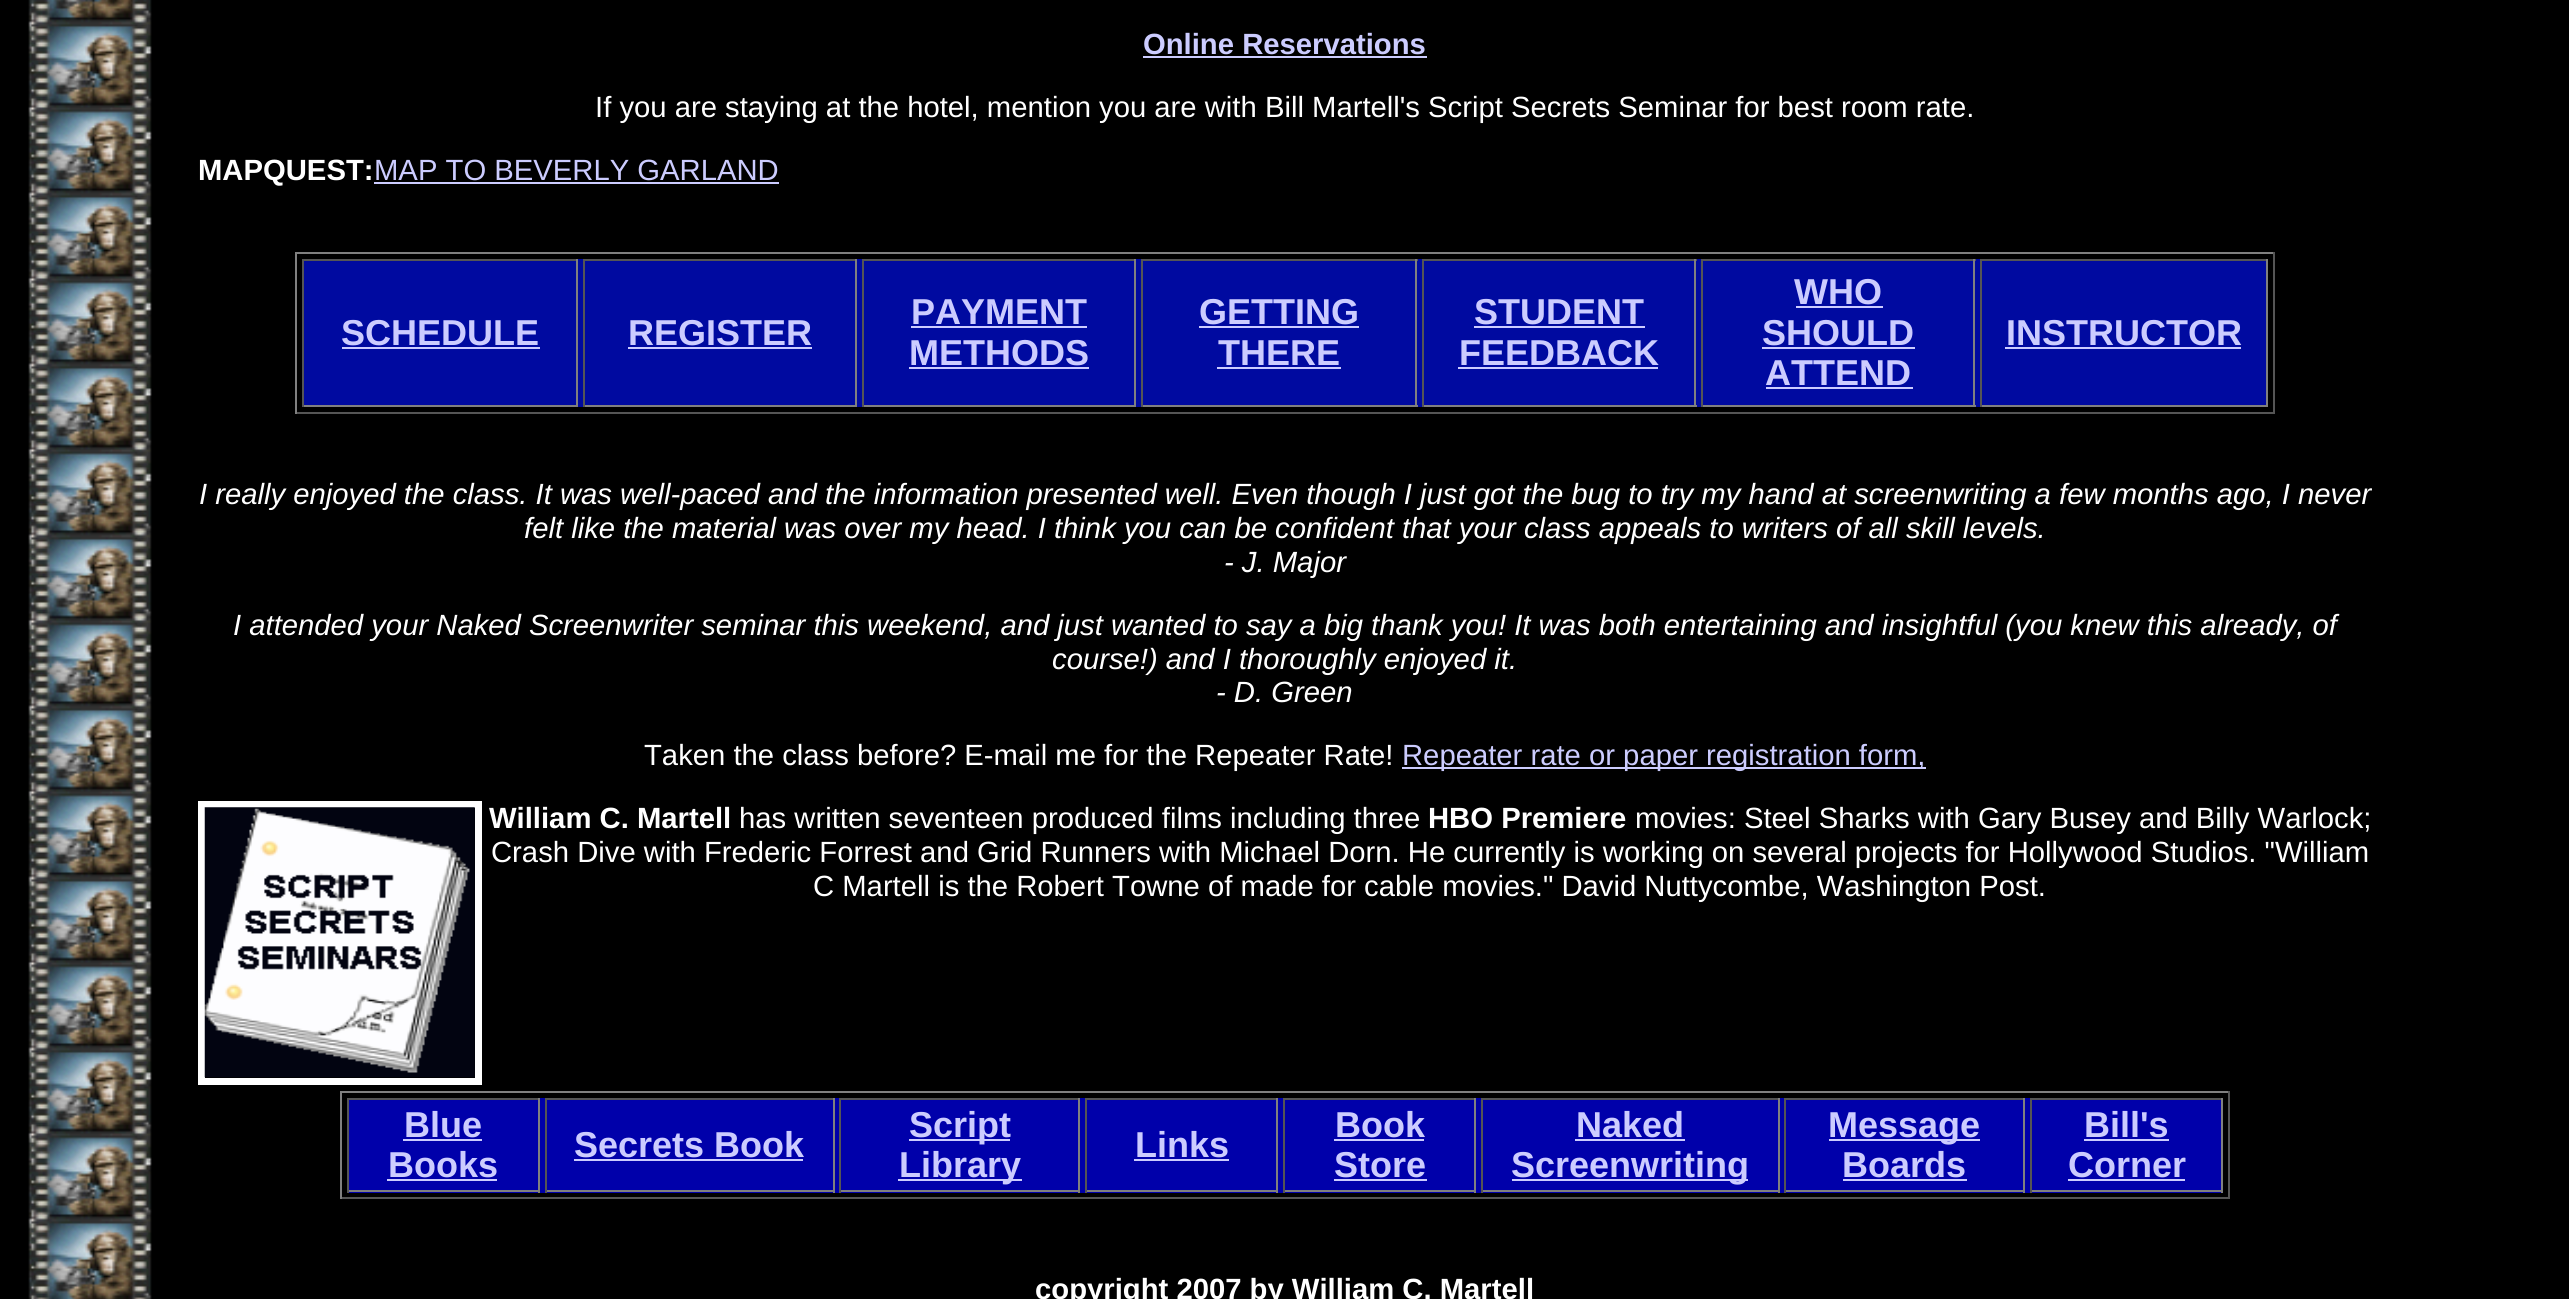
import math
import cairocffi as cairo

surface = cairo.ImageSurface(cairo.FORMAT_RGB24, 2569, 1299)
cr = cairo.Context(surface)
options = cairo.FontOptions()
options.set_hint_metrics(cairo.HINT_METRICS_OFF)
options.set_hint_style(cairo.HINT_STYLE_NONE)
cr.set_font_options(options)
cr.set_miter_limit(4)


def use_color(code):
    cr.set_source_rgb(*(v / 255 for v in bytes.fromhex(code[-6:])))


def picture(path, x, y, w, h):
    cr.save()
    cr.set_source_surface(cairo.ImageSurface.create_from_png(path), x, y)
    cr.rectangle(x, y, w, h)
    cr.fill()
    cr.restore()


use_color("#000000")
cr.paint()
picture("img1.png", 28, 0, 124, 1299)
cr.select_font_face("Liberation Sans", cairo.FONT_SLANT_NORMAL, cairo.FONT_WEIGHT_BOLD)
cr.set_font_size(29.25)
use_color("#ccccff")
cr.move_to(1143, 54)
cr.show_text("Online Reservations")
cr.rectangle(1143, 56, 284, 2)
cr.fill()
cr.select_font_face("Liberation Sans")
use_color("#ffffff")
cr.move_to(595, 117)
cr.show_text("If you are staying at the hotel, mention you are with Bill Martell's Script Secrets Seminar for best room rate.")
cr.select_font_face("Liberation Sans", cairo.FONT_SLANT_NORMAL, cairo.FONT_WEIGHT_BOLD)
cr.move_to(198, 180)
cr.show_text("MAPQUEST:")
cr.select_font_face("Liberation Sans")
use_color("#ccccff")
cr.move_to(374, 180)
cr.show_text("MAP TO BEVERLY GARLAND")
cr.rectangle(374, 182, 405, 2)
cr.fill()
use_color("#808080")
cr.rectangle(295, 252, 1980, 2)
cr.fill()
use_color("#555555")
cr.rectangle(2273, 252, 2, 162)
cr.fill()
cr.rectangle(295, 412, 1980, 2)
cr.fill()
use_color("#808080")
cr.rectangle(295, 252, 2, 162)
cr.fill()
use_color("#000aa0")
cr.rectangle(304, 259, 1962, 148)
cr.fill()
use_color("#555555")
cr.rectangle(302, 259, 276, 2)
cr.fill()
use_color("#808080")
cr.rectangle(576, 259, 2, 148)
cr.fill()
cr.rectangle(302, 405, 276, 2)
cr.fill()
use_color("#555555")
cr.rectangle(302, 259, 2, 148)
cr.fill()
cr.select_font_face("Liberation Sans", cairo.FONT_SLANT_NORMAL, cairo.FONT_WEIGHT_BOLD)
cr.set_font_size(36)
use_color("#ccccff")
cr.move_to(341, 345)
cr.show_text("SCHEDULE")
cr.rectangle(342, 347, 198, 2)
cr.fill()
use_color("#555555")
cr.rectangle(583, 259, 274, 2)
cr.fill()
use_color("#808080")
cr.rectangle(855, 259, 2, 148)
cr.fill()
cr.rectangle(583, 405, 274, 2)
cr.fill()
use_color("#555555")
cr.rectangle(583, 259, 2, 148)
cr.fill()
use_color("#ccccff")
cr.move_to(628, 345)
cr.show_text("REGISTER")
cr.rectangle(628, 347, 184, 2)
cr.fill()
use_color("#555555")
cr.rectangle(862, 259, 274, 2)
cr.fill()
use_color("#808080")
cr.rectangle(1134, 259, 2, 148)
cr.fill()
cr.rectangle(862, 405, 274, 2)
cr.fill()
use_color("#555555")
cr.rectangle(862, 259, 2, 148)
cr.fill()
use_color("#ccccff")
cr.move_to(911, 324)
cr.show_text("PAYMENT")
cr.rectangle(911, 326, 176, 2)
cr.fill()
cr.move_to(909, 365)
cr.show_text("METHODS")
cr.rectangle(909, 367, 180, 2)
cr.fill()
use_color("#555555")
cr.rectangle(1141, 259, 277, 2)
cr.fill()
use_color("#808080")
cr.rectangle(1415, 259, 2, 148)
cr.fill()
cr.rectangle(1141, 405, 277, 2)
cr.fill()
use_color("#555555")
cr.rectangle(1141, 259, 2, 148)
cr.fill()
use_color("#ccccff")
cr.move_to(1199, 324)
cr.show_text("GETTING")
cr.rectangle(1199, 326, 160, 2)
cr.fill()
cr.move_to(1218, 365)
cr.show_text("THERE")
cr.rectangle(1217, 367, 124, 2)
cr.fill()
use_color("#555555")
cr.rectangle(1422, 259, 275, 2)
cr.fill()
use_color("#808080")
cr.rectangle(1694, 259, 2, 148)
cr.fill()
cr.rectangle(1422, 405, 275, 2)
cr.fill()
use_color("#555555")
cr.rectangle(1422, 259, 2, 148)
cr.fill()
use_color("#ccccff")
cr.move_to(1474, 324)
cr.show_text("STUDENT")
cr.rectangle(1474, 326, 171, 2)
cr.fill()
cr.move_to(1459, 365)
cr.show_text("FEEDBACK")
cr.rectangle(1458, 367, 200, 2)
cr.fill()
use_color("#555555")
cr.rectangle(1701, 259, 275, 2)
cr.fill()
use_color("#808080")
cr.rectangle(1973, 259, 2, 148)
cr.fill()
cr.rectangle(1701, 405, 275, 2)
cr.fill()
use_color("#555555")
cr.rectangle(1701, 259, 2, 148)
cr.fill()
use_color("#ccccff")
cr.move_to(1794, 304)
cr.show_text("WHO")
cr.rectangle(1796, 306, 87, 2)
cr.fill()
cr.move_to(1762, 345)
cr.show_text("SHOULD")
cr.rectangle(1762, 347, 153, 2)
cr.fill()
cr.move_to(1765, 385)
cr.show_text("ATTEND")
cr.rectangle(1766, 387, 147, 2)
cr.fill()
use_color("#555555")
cr.rectangle(1980, 259, 288, 2)
cr.fill()
use_color("#808080")
cr.rectangle(2266, 259, 2, 148)
cr.fill()
cr.rectangle(1980, 405, 288, 2)
cr.fill()
use_color("#555555")
cr.rectangle(1980, 259, 2, 148)
cr.fill()
use_color("#ccccff")
cr.move_to(2006, 345)
cr.show_text("INSTRUCTOR")
cr.rectangle(2005, 347, 236, 2)
cr.fill()
cr.select_font_face("Liberation Sans", cairo.FONT_SLANT_ITALIC)
cr.set_font_size(29.25)
use_color("#ffffff")
cr.move_to(199, 504)
cr.show_text("I really enjoyed the class. It was well-paced and the information presented well. Even though I just got the bug to try my hand at screenwriting a few months ago, I never")
cr.move_to(524, 538)
cr.show_text("felt like the material was over my head. I think you can be confident that your class appeals to writers of all skill levels.")
cr.move_to(1224, 572)
cr.show_text("- J. Major")
cr.move_to(233, 635)
cr.show_text("I attended your Naked Screenwriter seminar this weekend, and just wanted to say a big thank you! It was both entertaining and insightful (you knew this already, of")
cr.move_to(1052, 669)
cr.show_text("course!) and I thoroughly enjoyed it.")
cr.move_to(1216, 702)
cr.show_text("- D. Green")
cr.select_font_face("Liberation Sans")
cr.move_to(644, 765)
cr.show_text("Taken the class before? E-mail me for the Repeater Rate!")
use_color("#ccccff")
cr.rectangle(1402, 767, 524, 2)
cr.fill()
cr.move_to(1402, 765)
cr.show_text("Repeater rate or paper registration form,")
cr.rectangle(201.5, 804.5, 277, 277)
use_color("#ffffff")
cr.set_line_width(7)
cr.stroke()
picture("img2.png", 204, 807, 271, 271)
cr.select_font_face("Liberation Sans", cairo.FONT_SLANT_NORMAL, cairo.FONT_WEIGHT_BOLD)
cr.move_to(489, 828)
cr.show_text("William C. Martell")
cr.select_font_face("Liberation Sans")
cr.move_to(739, 828)
cr.show_text("has written seventeen produced films including three")
cr.select_font_face("Liberation Sans", cairo.FONT_SLANT_NORMAL, cairo.FONT_WEIGHT_BOLD)
cr.move_to(1428, 828)
cr.show_text("HBO Premiere")
cr.select_font_face("Liberation Sans")
cr.move_to(1635, 828)
cr.show_text("movies: Steel Sharks with Gary Busey and Billy Warlock;")
cr.move_to(491, 862)
cr.show_text("Crash Dive with Frederic Forrest and Grid Runners with Michael Dorn. He currently is working on several projects for Hollywood Studios. \"William")
cr.move_to(813, 896)
cr.show_text("C Martell is the Robert Towne of made for cable movies.\" David Nuttycombe, Washington Post.")
use_color("#808080")
cr.rectangle(340, 1091, 1890, 2)
cr.fill()
use_color("#555555")
cr.rectangle(2228, 1091, 2, 108)
cr.fill()
cr.rectangle(340, 1197, 1890, 2)
cr.fill()
use_color("#808080")
cr.rectangle(340, 1091, 2, 108)
cr.fill()
use_color("#0000aa")
cr.rectangle(349, 1098, 1872, 95)
cr.fill()
use_color("#555555")
cr.rectangle(347, 1098, 193, 2)
cr.fill()
use_color("#808080")
cr.rectangle(538, 1098, 2, 95)
cr.fill()
cr.rectangle(347, 1190, 193, 2)
cr.fill()
use_color("#555555")
cr.rectangle(347, 1098, 2, 95)
cr.fill()
cr.select_font_face("Liberation Sans", cairo.FONT_SLANT_NORMAL, cairo.FONT_WEIGHT_BOLD)
cr.set_font_size(36)
use_color("#ccccff")
cr.move_to(404, 1137)
cr.show_text("Blue")
cr.rectangle(403, 1139, 79, 2)
cr.fill()
cr.move_to(388, 1177)
cr.show_text("Books")
cr.rectangle(387, 1179, 110, 2)
cr.fill()
use_color("#555555")
cr.rectangle(545, 1098, 290, 2)
cr.fill()
use_color("#808080")
cr.rectangle(833, 1098, 2, 95)
cr.fill()
cr.rectangle(545, 1190, 290, 2)
cr.fill()
use_color("#555555")
cr.rectangle(545, 1098, 2, 95)
cr.fill()
use_color("#ccccff")
cr.move_to(574, 1157)
cr.show_text("Secrets Book")
cr.rectangle(574, 1159, 229, 2)
cr.fill()
use_color("#555555")
cr.rectangle(839, 1098, 241, 2)
cr.fill()
use_color("#808080")
cr.rectangle(1078, 1098, 2, 95)
cr.fill()
cr.rectangle(839, 1190, 241, 2)
cr.fill()
use_color("#555555")
cr.rectangle(839, 1098, 2, 95)
cr.fill()
use_color("#ccccff")
cr.rectangle(909, 1139, 101, 2)
cr.fill()
cr.move_to(909, 1137)
cr.show_text("Script")
cr.rectangle(898, 1179, 124, 2)
cr.fill()
cr.move_to(899, 1177)
cr.show_text("Library")
use_color("#555555")
cr.rectangle(1085, 1098, 193, 2)
cr.fill()
use_color("#808080")
cr.rectangle(1276, 1098, 2, 95)
cr.fill()
cr.rectangle(1085, 1190, 193, 2)
cr.fill()
use_color("#555555")
cr.rectangle(1085, 1098, 2, 95)
cr.fill()
use_color("#ccccff")
cr.move_to(1135, 1157)
cr.show_text("Links")
cr.rectangle(1134, 1159, 95, 2)
cr.fill()
use_color("#555555")
cr.rectangle(1283, 1098, 193, 2)
cr.fill()
use_color("#808080")
cr.rectangle(1474, 1098, 2, 95)
cr.fill()
cr.rectangle(1283, 1190, 193, 2)
cr.fill()
use_color("#555555")
cr.rectangle(1283, 1098, 2, 95)
cr.fill()
use_color("#ccccff")
cr.move_to(1335, 1137)
cr.show_text("Book")
cr.rectangle(1334, 1139, 90, 2)
cr.fill()
cr.move_to(1334, 1177)
cr.show_text("Store")
cr.rectangle(1334, 1179, 93, 2)
cr.fill()
use_color("#555555")
cr.rectangle(1481, 1098, 299, 2)
cr.fill()
use_color("#808080")
cr.rectangle(1778, 1098, 2, 95)
cr.fill()
cr.rectangle(1481, 1190, 299, 2)
cr.fill()
use_color("#555555")
cr.rectangle(1481, 1098, 2, 95)
cr.fill()
use_color("#ccccff")
cr.move_to(1576, 1137)
cr.show_text("Naked")
cr.rectangle(1575, 1139, 110, 2)
cr.fill()
cr.rectangle(1512, 1179, 236, 2)
cr.fill()
cr.move_to(1511, 1177)
cr.show_text("Screenwriting")
use_color("#555555")
cr.rectangle(1784, 1098, 241, 2)
cr.fill()
use_color("#808080")
cr.rectangle(2023, 1098, 2, 95)
cr.fill()
cr.rectangle(1784, 1190, 241, 2)
cr.fill()
use_color("#555555")
cr.rectangle(1784, 1098, 2, 95)
cr.fill()
use_color("#ccccff")
cr.rectangle(1829, 1139, 151, 2)
cr.fill()
cr.move_to(1828, 1137)
cr.show_text("Message")
cr.move_to(1842, 1177)
cr.show_text("Boards")
cr.rectangle(1843, 1179, 124, 2)
cr.fill()
use_color("#555555")
cr.rectangle(2030, 1098, 193, 2)
cr.fill()
use_color("#808080")
cr.rectangle(2221, 1098, 2, 95)
cr.fill()
cr.rectangle(2030, 1190, 193, 2)
cr.fill()
use_color("#555555")
cr.rectangle(2030, 1098, 2, 95)
cr.fill()
use_color("#ccccff")
cr.move_to(2084, 1137)
cr.show_text("Bill's")
cr.rectangle(2084, 1139, 85, 2)
cr.fill()
cr.move_to(2068, 1177)
cr.show_text("Corner")
cr.rectangle(2068, 1179, 117, 2)
cr.fill()
cr.set_font_size(29.25)
use_color("#ffffff")
cr.move_to(1035, 1299)
cr.show_text("copyright 2007 by William C. Martell")
surface.write_to_png("result.png")
